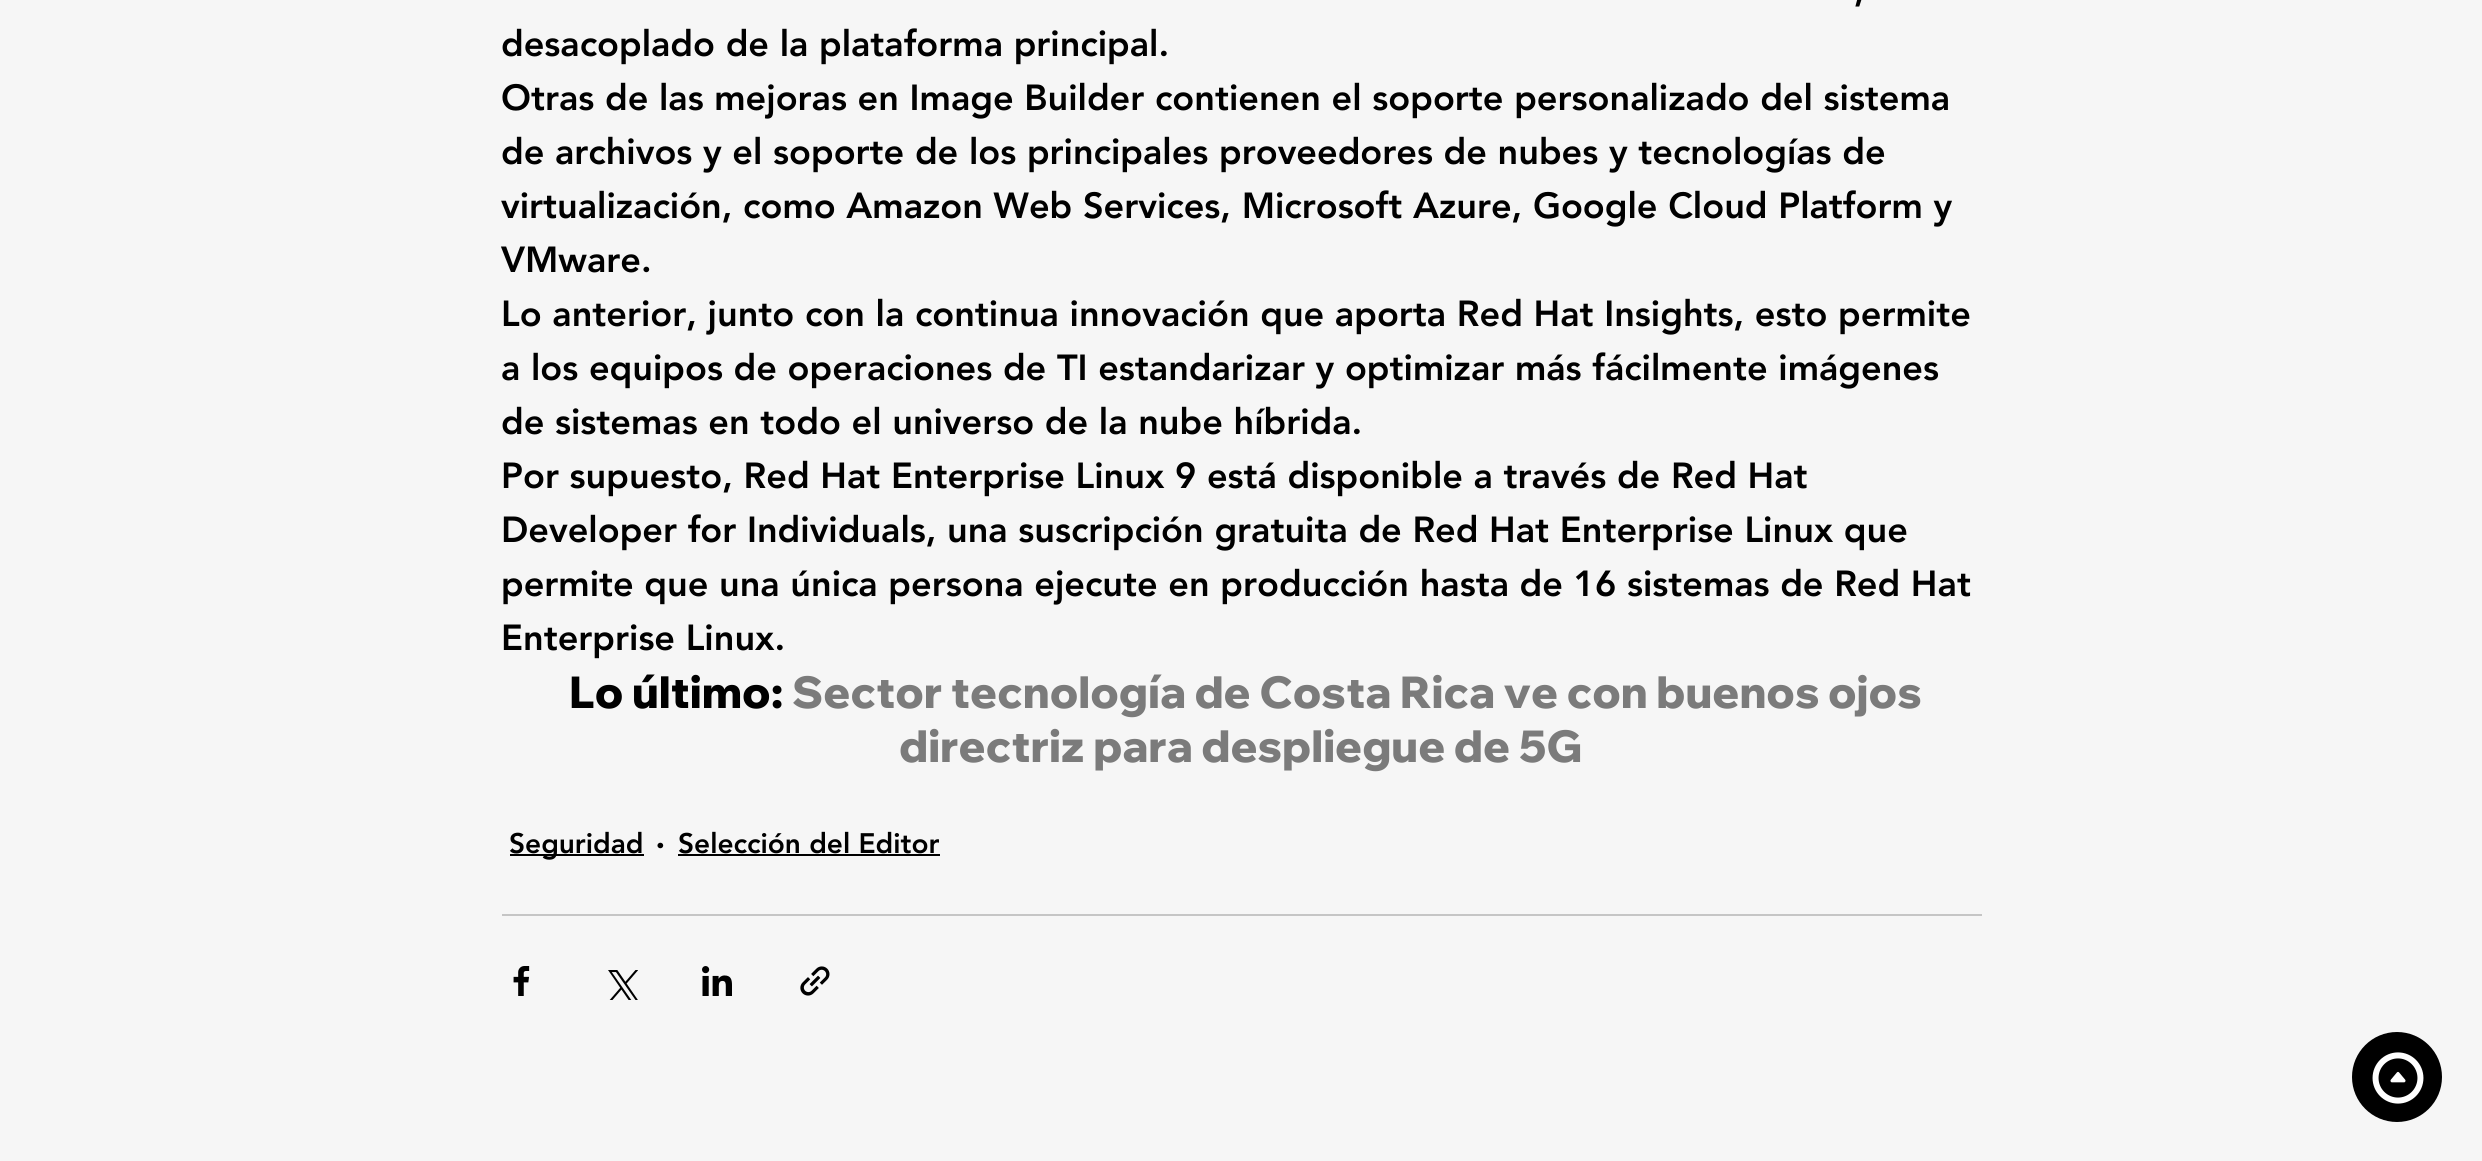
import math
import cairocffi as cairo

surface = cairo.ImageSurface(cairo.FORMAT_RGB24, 2482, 1161)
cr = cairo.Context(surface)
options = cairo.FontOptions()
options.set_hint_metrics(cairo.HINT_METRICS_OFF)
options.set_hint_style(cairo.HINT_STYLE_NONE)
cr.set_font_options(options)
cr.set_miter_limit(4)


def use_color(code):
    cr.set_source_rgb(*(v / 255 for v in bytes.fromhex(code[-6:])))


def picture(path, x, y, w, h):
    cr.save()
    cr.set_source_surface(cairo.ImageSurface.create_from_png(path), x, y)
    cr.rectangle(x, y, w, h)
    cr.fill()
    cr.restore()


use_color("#f6f6f6")
cr.paint()
cr.select_font_face("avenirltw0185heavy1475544 Black")
cr.set_font_size(36)
use_color("#000000")
cr.move_to(1854, 2)
cr.show_text(",")
cr.move_to(501, 56)
cr.show_text("desacoplado de la plataforma principal.")
cr.move_to(501, 110)
cr.show_text("Otras de las mejoras en Image Builder contienen el soporte personalizado del sistema")
cr.move_to(501, 164)
cr.show_text("de archivos y el soporte de los principales proveedores de nubes y tecnologías de")
cr.move_to(501, 218)
cr.show_text("virtualización, como Amazon Web Services, Microsoft Azure, Google Cloud Platform y")
cr.move_to(501, 272)
cr.show_text("VMware.")
cr.move_to(501, 326)
cr.show_text("Lo anterior, junto con la continua innovación que aporta Red Hat Insights, esto permite")
cr.move_to(501, 380)
cr.show_text("a los equipos de operaciones de TI estandarizar y optimizar más fácilmente imágenes")
cr.move_to(501, 434)
cr.show_text("de sistemas en todo el universo de la nube híbrida.")
cr.move_to(501, 488)
cr.show_text("Por supuesto, Red Hat Enterprise Linux 9 está disponible a través de Red Hat")
cr.move_to(501, 542)
cr.show_text("Developer for Individuals, una suscripción gratuita de Red Hat Enterprise Linux que")
cr.move_to(501, 596)
cr.show_text("permite que una única persona ejecute en producción hasta de 16 sistemas de Red Hat")
cr.move_to(501, 650)
cr.show_text("Enterprise Linux.")
cr.select_font_face("Wix Madefor Display ExtraBold")
cr.set_font_size(44)
cr.move_to(569, 708)
cr.show_text("Lo último:")
use_color("#7b7b7b")
cr.move_to(792, 708)
cr.show_text("Sector tecnología de Costa Rica ve con buenos ojos")
cr.move_to(899, 762)
cr.show_text("directriz para despliegue de 5G")
use_color("#000000")
cr.rectangle(510, 854, 134, 2)
cr.fill()
cr.select_font_face("avenirltw0185heavy1475544 Black")
cr.set_font_size(28)
cr.move_to(509, 853)
cr.show_text("Seguridad")
cr.set_font_size(36)
cr.move_to(655, 856)
cr.show_text("·")
cr.set_font_size(28)
cr.move_to(678, 853)
cr.show_text("Selección del Editor")
cr.rectangle(678, 854, 262, 2)
cr.fill()
use_color("#c5c5c5")
cr.rectangle(502, 914, 1480, 2)
cr.fill()
picture("img1.png", 513, 966, 17, 30)
picture("img2.png", 608, 970, 30, 30)
picture("img3.png", 702, 966, 30, 30)
picture("img4.png", 800, 966, 30, 30)
use_color("#000000")
cr.arc(2397, 1077, 45, 0, 2 * math.pi)
cr.fill()
picture("img5.png", 2372, 1052, 52, 52)
surface.write_to_png("result.png")
